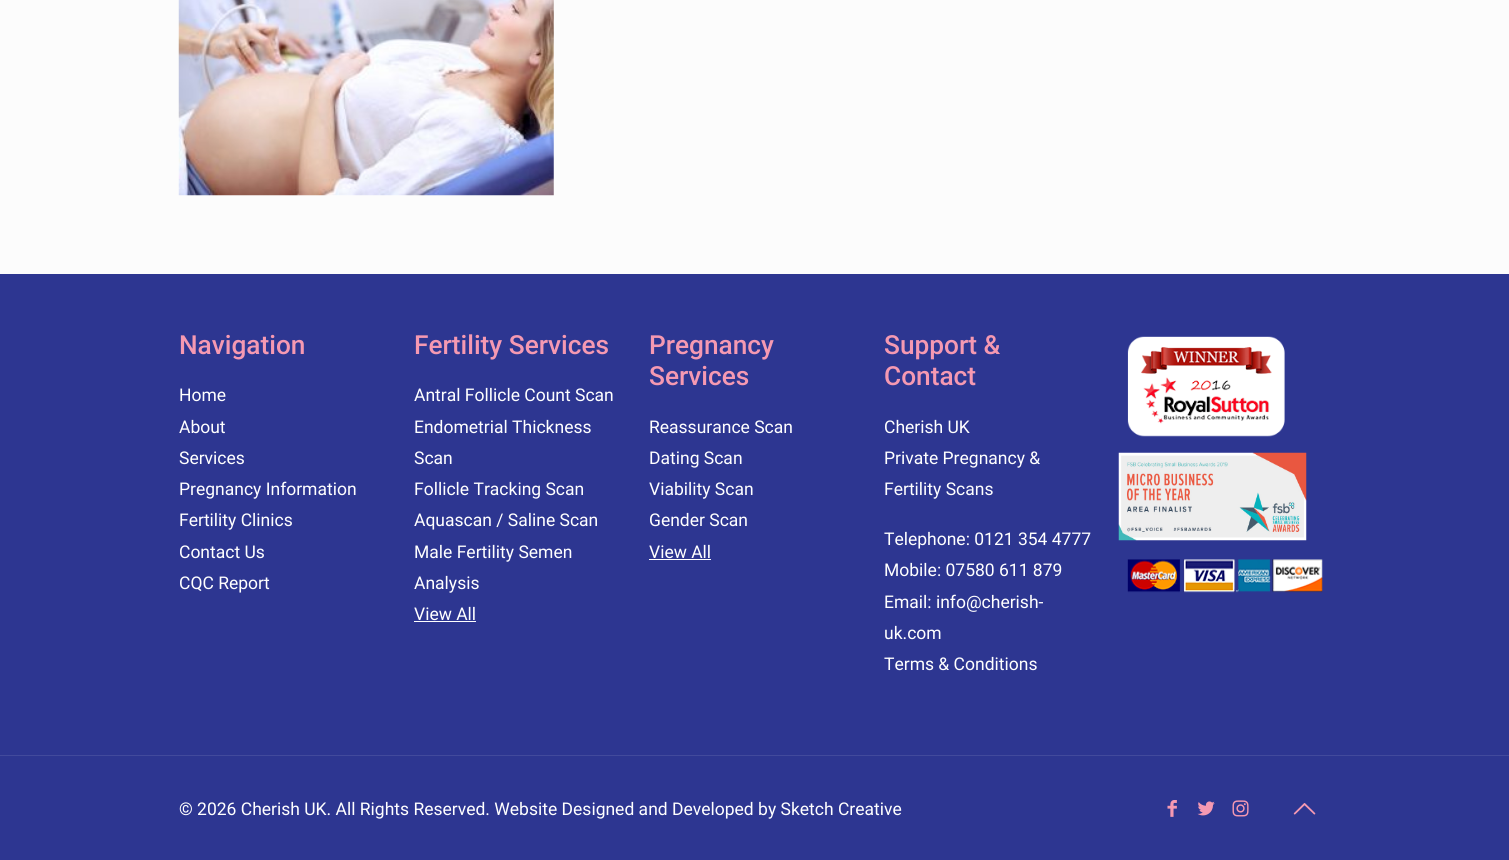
import math
import cairocffi as cairo

surface = cairo.ImageSurface(cairo.FORMAT_RGB24, 1509, 860)
cr = cairo.Context(surface)
options = cairo.FontOptions()
options.set_hint_metrics(cairo.HINT_METRICS_OFF)
options.set_hint_style(cairo.HINT_STYLE_NONE)
cr.set_font_options(options)
cr.set_miter_limit(4)


def use_color(code):
    cr.set_source_rgb(*(v / 255 for v in bytes.fromhex(code[-6:])))


def picture(path, x, y, w, h):
    cr.save()
    cr.set_source_surface(cairo.ImageSurface.create_from_png(path), x, y)
    cr.rectangle(x, y, w, h)
    cr.fill()
    cr.restore()


use_color("#fcfcfc")
cr.paint()
picture("img1.png", 178, 0, 376, 196)
use_color("#2d3691")
cr.rectangle(0, 274, 1509, 586)
cr.fill()
cr.select_font_face("Roboto Medium")
cr.set_font_size(26.25)
use_color("#f599b2")
cr.move_to(179, 354)
cr.show_text("Navigation")
cr.select_font_face("Roboto")
cr.set_font_size(17.5)
use_color("#ffffff")
cr.move_to(179, 401)
cr.show_text("Home")
cr.move_to(179, 433)
cr.show_text("About")
cr.move_to(179, 464)
cr.show_text("Services")
cr.move_to(179, 495)
cr.show_text("Pregnancy Information")
cr.move_to(179, 526)
cr.show_text("Fertility Clinics")
cr.move_to(179, 558)
cr.show_text("Contact Us")
cr.move_to(179, 589)
cr.show_text("CQC Report")
cr.select_font_face("Roboto Medium")
cr.set_font_size(26.25)
use_color("#f599b2")
cr.move_to(414, 354)
cr.show_text("Fertility Services")
cr.select_font_face("Roboto")
cr.set_font_size(17.5)
use_color("#ffffff")
cr.move_to(414, 401)
cr.show_text("Antral Follicle Count Scan")
cr.move_to(414, 433)
cr.show_text("Endometrial Thickness")
cr.move_to(414, 464)
cr.show_text("Scan")
cr.move_to(414, 495)
cr.show_text("Follicle Tracking Scan")
cr.move_to(414, 526)
cr.show_text("Aquascan / Saline Scan")
cr.move_to(414, 558)
cr.show_text("Male Fertility Semen")
cr.move_to(414, 589)
cr.show_text("Analysis")
cr.move_to(414, 620)
cr.show_text("View All")
cr.rectangle(414, 621, 62, 1)
cr.fill()
cr.select_font_face("Roboto Medium")
cr.set_font_size(26.25)
use_color("#f599b2")
cr.move_to(649, 354)
cr.show_text("Pregnancy")
cr.move_to(649, 385)
cr.show_text("Services")
cr.select_font_face("Roboto")
cr.set_font_size(17.5)
use_color("#ffffff")
cr.move_to(649, 433)
cr.show_text("Reassurance Scan")
cr.move_to(649, 464)
cr.show_text("Dating Scan")
cr.move_to(649, 495)
cr.show_text("Viability Scan")
cr.move_to(649, 526)
cr.show_text("Gender Scan")
cr.move_to(649, 558)
cr.show_text("View All")
cr.rectangle(649, 559, 62, 1)
cr.fill()
cr.select_font_face("Roboto Medium")
cr.set_font_size(26.25)
use_color("#f599b2")
cr.move_to(884, 354)
cr.show_text("Support &")
cr.move_to(884, 385)
cr.show_text("Contact")
cr.select_font_face("Roboto")
cr.set_font_size(17.5)
use_color("#ffffff")
cr.move_to(884, 433)
cr.show_text("Cherish UK")
cr.move_to(884, 464)
cr.show_text("Private Pregnancy &")
cr.move_to(884, 495)
cr.show_text("Fertility Scans")
cr.move_to(884, 545)
cr.show_text("Telephone: 0121 354 4777")
cr.move_to(884, 576)
cr.show_text("Mobile: 07580 611 879")
cr.move_to(884, 608)
cr.show_text("Email: info@cherish-")
cr.move_to(884, 639)
cr.show_text("uk.com")
cr.move_to(884, 670)
cr.show_text("Terms & Conditions")
picture("img2.png", 1127, 336, 158, 101)
picture("img3.png", 1118, 452, 189, 89)
picture("img4.png", 1127, 559, 196, 34)
use_color("#424a9c")
cr.rectangle(0, 755, 1509, 1)
cr.fill()
use_color("#ffffff")
cr.move_to(179, 815)
cr.show_text("© 2026 Cherish UK. All Rights Reserved. Website Designed and Developed by Sketch Creative")
picture("img5.png", 1167, 800, 10, 17)
picture("img6.png", 1197, 801, 18, 15)
picture("img7.png", 1232, 800, 17, 17)
picture("img8.png", 1293, 803, 23, 12)
surface.write_to_png("result.png")
